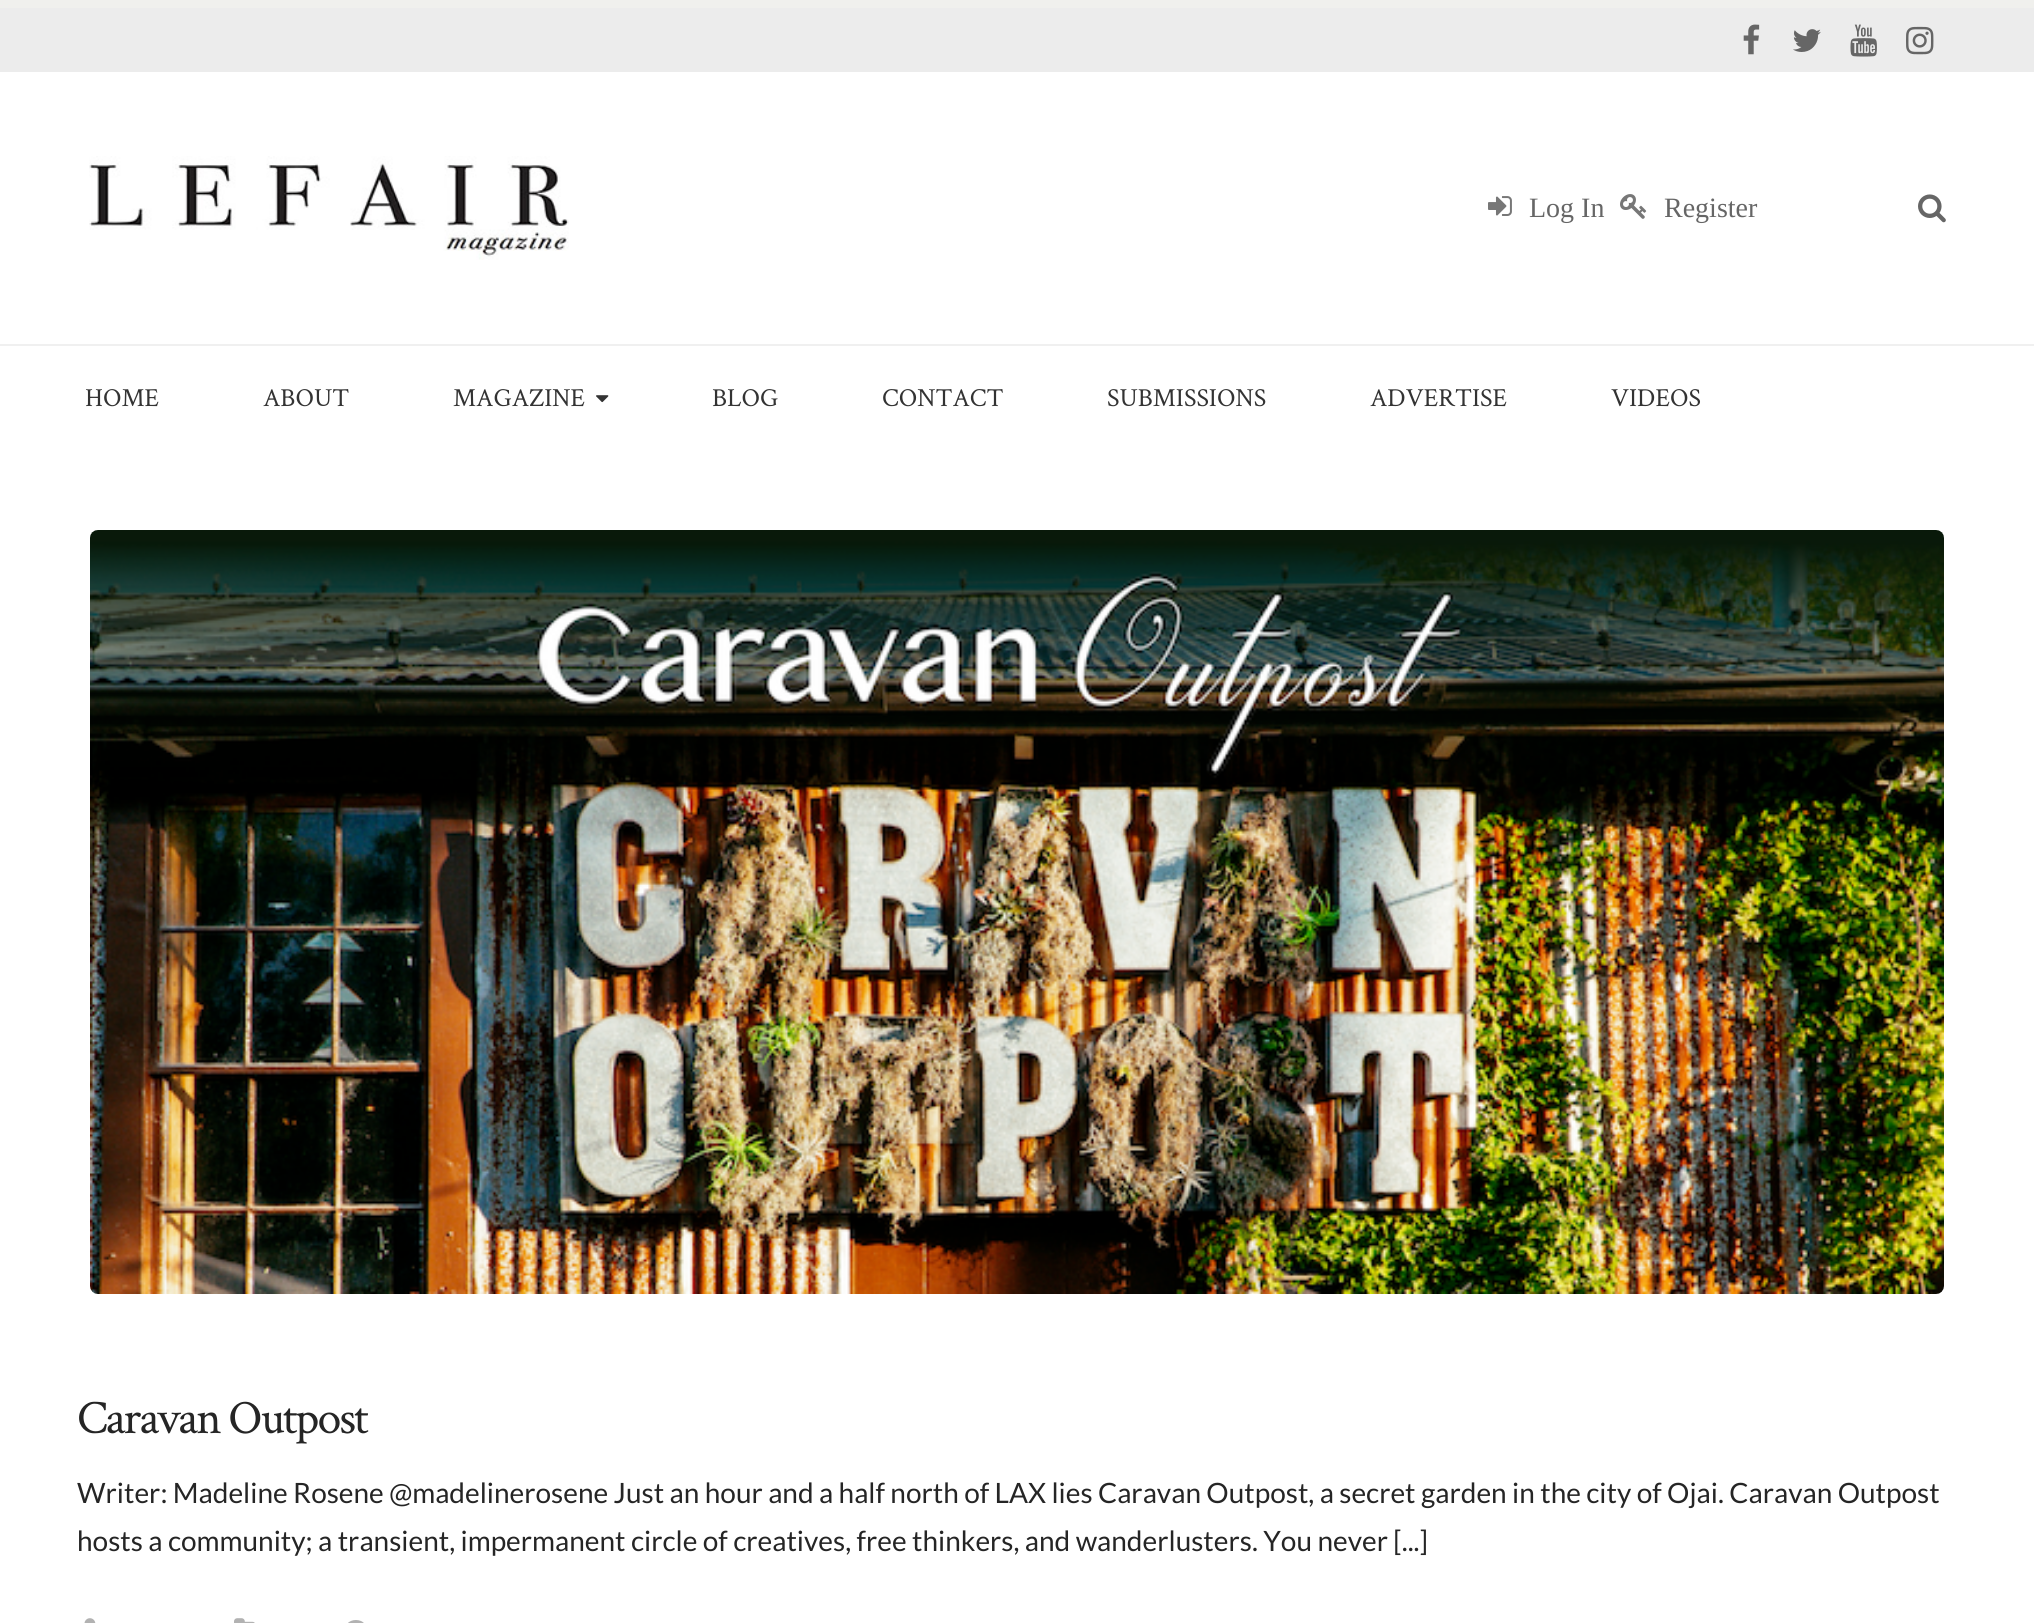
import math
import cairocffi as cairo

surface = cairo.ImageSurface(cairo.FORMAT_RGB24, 2034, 1623)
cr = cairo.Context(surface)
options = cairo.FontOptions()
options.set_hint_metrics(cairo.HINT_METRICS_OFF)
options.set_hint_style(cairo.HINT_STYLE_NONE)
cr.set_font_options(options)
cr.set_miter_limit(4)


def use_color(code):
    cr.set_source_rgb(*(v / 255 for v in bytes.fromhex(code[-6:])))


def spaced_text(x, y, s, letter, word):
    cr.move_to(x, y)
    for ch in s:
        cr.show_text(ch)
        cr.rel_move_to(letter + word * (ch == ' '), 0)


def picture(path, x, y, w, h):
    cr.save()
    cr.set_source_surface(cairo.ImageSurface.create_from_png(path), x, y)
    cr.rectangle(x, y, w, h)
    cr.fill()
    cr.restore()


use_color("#ffffff")
cr.paint()
use_color("#f0f0ed")
cr.rectangle(0, 0, 2034, 8)
cr.fill()
use_color("#ececec")
cr.rectangle(0, 8, 2034, 64)
cr.fill()
picture("img1.png", 1743, 24, 17, 31)
picture("img2.png", 1793, 29, 28, 23)
picture("img3.png", 1850, 24, 27, 33)
picture("img4.png", 1906, 26, 28, 29)
picture("img5.png", 89, 156, 480, 104)
picture("img6.png", 1488, 196, 24, 20)
cr.select_font_face("Liberation Serif")
cr.set_font_size(28)
use_color("#666666")
cr.move_to(1529, 217)
cr.show_text("Log In")
picture("img7.png", 1620, 194, 27, 25)
cr.move_to(1664, 217)
cr.show_text("Register")
picture("img8.png", 1918, 194, 28, 29)
use_color("#f0f0f0")
cr.rectangle(0, 344, 2034, 2)
cr.fill()
cr.select_font_face("Crimson Text")
cr.set_font_size(26)
use_color("#333333")
cr.move_to(85, 406)
cr.show_text("HOME")
cr.move_to(263, 406)
cr.show_text("ABOUT")
cr.move_to(453, 406)
cr.show_text("MAGAZINE")
picture("img9.png", 596, 395, 13, 8)
cr.move_to(712, 406)
cr.show_text("BLOG")
cr.move_to(882, 406)
cr.show_text("CONTACT")
cr.move_to(1107, 406)
cr.show_text("SUBMISSIONS")
cr.move_to(1370, 406)
cr.show_text("ADVERTISE")
cr.move_to(1611, 406)
cr.show_text("VIDEOS")
picture("img10.png", 90, 530, 1854, 764)
cr.select_font_face("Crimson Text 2")
cr.set_font_size(48)
use_color("#252525")
spaced_text(77, 1433, "Caravan Outpost", -2, 0)
cr.select_font_face("Lato")
cr.set_font_size(28)
cr.move_to(77, 1503)
cr.show_text("Writer: Madeline Rosene @madelinerosene Just an hour and a half north of LAX lies Caravan Outpost, a secret garden in the city of Ojai. Caravan Outpost")
cr.move_to(77, 1551)
cr.show_text("hosts a community; a transient, impermanent circle of creatives, free thinkers, and wanderlusters. You never [...]")
picture("img11.png", 84, 1618, 12, 5)
picture("img12.png", 234, 1618, 21, 5)
picture("img13.png", 348, 1620, 16, 3)
surface.write_to_png("result.png")
